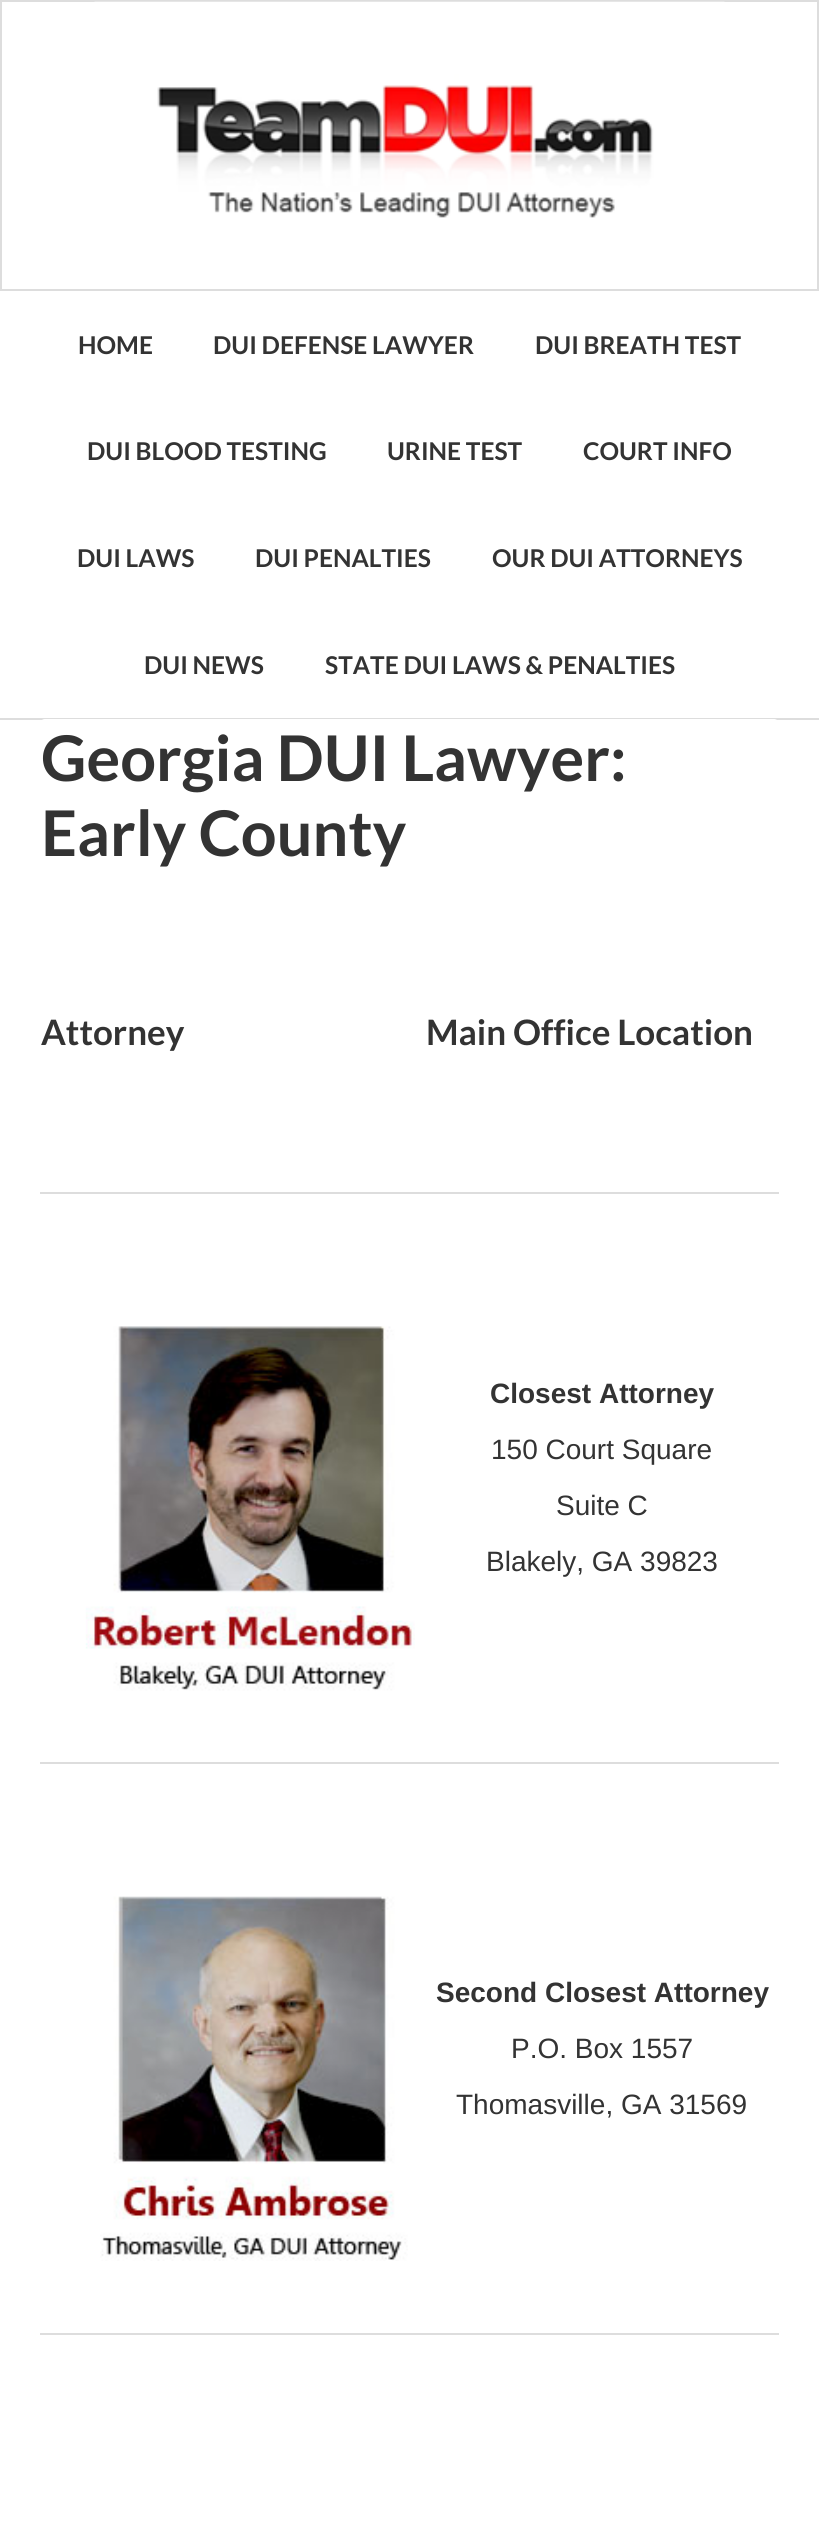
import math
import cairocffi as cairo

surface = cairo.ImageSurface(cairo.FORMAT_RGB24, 819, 2522)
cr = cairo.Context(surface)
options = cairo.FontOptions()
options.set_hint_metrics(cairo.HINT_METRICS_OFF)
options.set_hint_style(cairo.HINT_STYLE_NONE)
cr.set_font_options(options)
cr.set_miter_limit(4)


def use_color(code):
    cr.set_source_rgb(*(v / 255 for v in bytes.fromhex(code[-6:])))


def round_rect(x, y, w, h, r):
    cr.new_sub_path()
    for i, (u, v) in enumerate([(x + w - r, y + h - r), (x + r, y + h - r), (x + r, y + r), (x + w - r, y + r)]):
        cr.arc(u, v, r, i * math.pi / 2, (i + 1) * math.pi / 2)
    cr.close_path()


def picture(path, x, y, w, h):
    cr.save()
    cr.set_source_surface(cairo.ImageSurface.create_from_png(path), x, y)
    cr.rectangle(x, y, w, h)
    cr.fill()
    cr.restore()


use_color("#ffffff")
cr.paint()
cr.rectangle(1, 1, 817, 289)
use_color("#dddddd")
cr.stroke()
picture("img1.png", 94, 1, 631, 217)
cr.rectangle(0, 718, 819, 2)
cr.fill()
cr.select_font_face("Lato", cairo.FONT_SLANT_NORMAL, cairo.FONT_WEIGHT_BOLD)
cr.set_font_size(24.5)
use_color("#333333")
cr.move_to(78, 354)
cr.show_text("HOME")
cr.move_to(213, 354)
cr.show_text("DUI DEFENSE LAWYER")
cr.move_to(535, 354)
cr.show_text("DUI BREATH TEST")
cr.move_to(87, 460)
cr.show_text("DUI BLOOD TESTING")
cr.move_to(387, 460)
cr.show_text("URINE TEST")
cr.move_to(583, 460)
cr.show_text("COURT INFO")
cr.move_to(77, 567)
cr.show_text("DUI LAWS")
cr.move_to(255, 567)
cr.show_text("DUI PENALTIES")
cr.move_to(492, 567)
cr.show_text("OUR DUI ATTORNEYS")
cr.move_to(144, 674)
cr.show_text("DUI NEWS")
cr.move_to(325, 674)
cr.show_text("STATE DUI LAWS & PENALTIES")
use_color("#ffffff")
round_rect(40, 719, 739, 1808, 5)
cr.fill()
cr.set_font_size(63)
use_color("#333333")
cr.move_to(41, 781)
cr.show_text("Georgia DUI Lawyer:")
cr.move_to(41, 856)
cr.show_text("Early County")
use_color("#dddddd")
cr.rectangle(40, 2333, 739, 2)
cr.fill()
cr.set_font_size(35)
use_color("#333333")
cr.move_to(41, 1045)
cr.show_text("Attorney")
cr.move_to(426, 1045)
cr.show_text("Main Office Location")
picture("img2.png", 85, 1326, 330, 365)
use_color("#dddddd")
cr.rectangle(40, 1192, 739, 2)
cr.fill()
cr.select_font_face("Liberation Sans", cairo.FONT_SLANT_NORMAL, cairo.FONT_WEIGHT_BOLD)
cr.set_font_size(28)
use_color("#333333")
cr.move_to(490, 1403)
cr.show_text("Closest Attorney")
cr.select_font_face("Liberation Sans")
cr.move_to(491, 1459)
cr.show_text("150 Court Square")
cr.move_to(556, 1515)
cr.show_text("Suite C")
cr.move_to(486, 1571)
cr.show_text("Blakely, GA 39823")
picture("img3.png", 100, 1896, 308, 365)
use_color("#dddddd")
cr.rectangle(40, 1762, 739, 2)
cr.fill()
cr.select_font_face("Liberation Sans", cairo.FONT_SLANT_NORMAL, cairo.FONT_WEIGHT_BOLD)
use_color("#333333")
cr.move_to(436, 2002)
cr.show_text("Second Closest Attorney")
cr.select_font_face("Liberation Sans")
cr.move_to(511, 2058)
cr.show_text("P.O. Box 1557")
cr.move_to(456, 2114)
cr.show_text("Thomasville, GA 31569")
surface.write_to_png("result.png")
